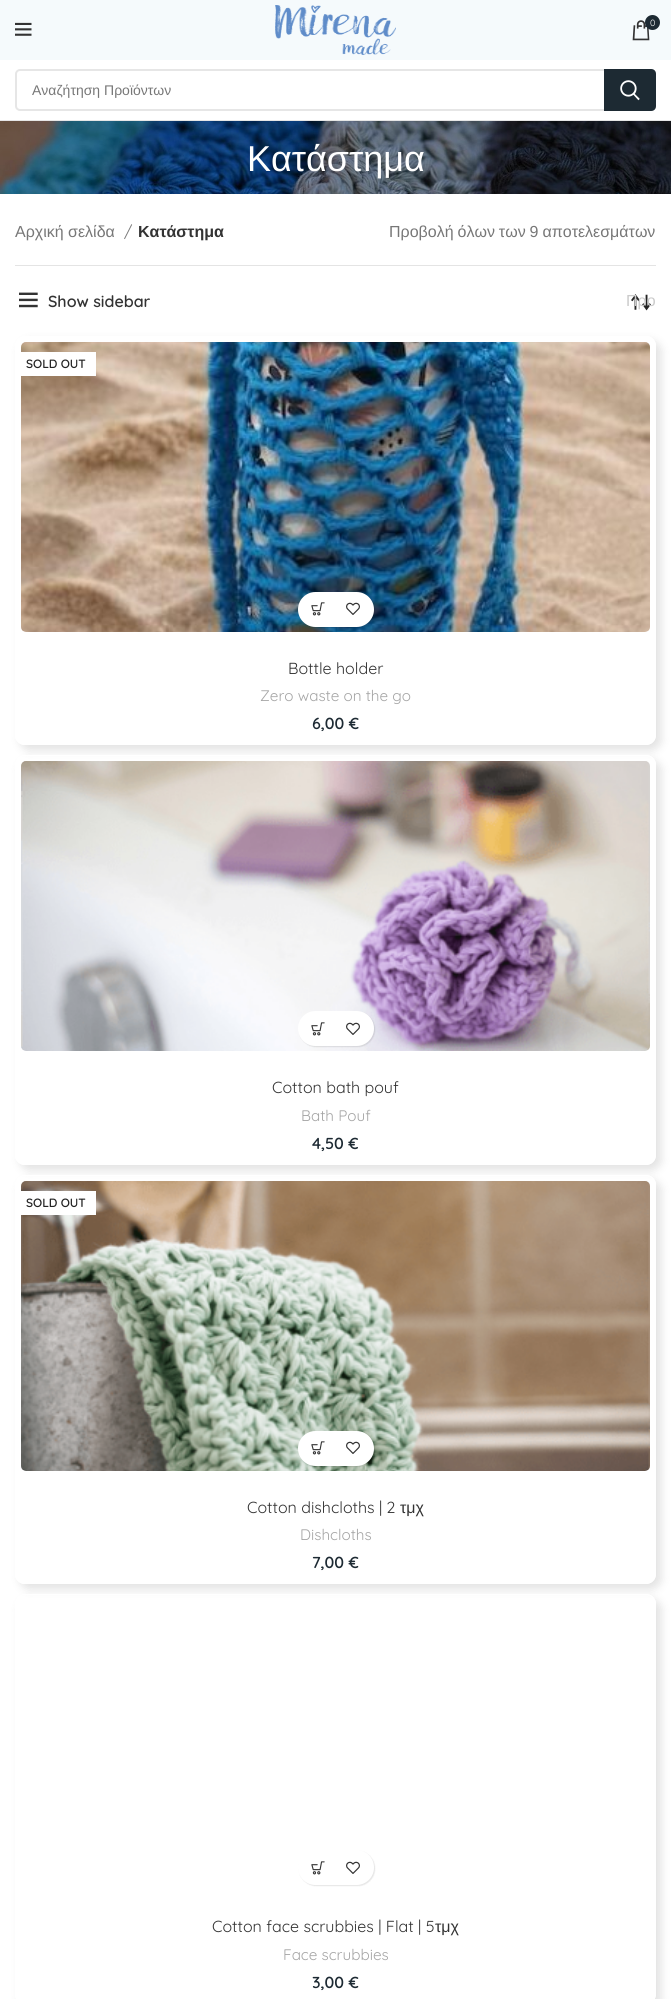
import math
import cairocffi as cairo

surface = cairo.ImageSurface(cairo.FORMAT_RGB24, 671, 1999)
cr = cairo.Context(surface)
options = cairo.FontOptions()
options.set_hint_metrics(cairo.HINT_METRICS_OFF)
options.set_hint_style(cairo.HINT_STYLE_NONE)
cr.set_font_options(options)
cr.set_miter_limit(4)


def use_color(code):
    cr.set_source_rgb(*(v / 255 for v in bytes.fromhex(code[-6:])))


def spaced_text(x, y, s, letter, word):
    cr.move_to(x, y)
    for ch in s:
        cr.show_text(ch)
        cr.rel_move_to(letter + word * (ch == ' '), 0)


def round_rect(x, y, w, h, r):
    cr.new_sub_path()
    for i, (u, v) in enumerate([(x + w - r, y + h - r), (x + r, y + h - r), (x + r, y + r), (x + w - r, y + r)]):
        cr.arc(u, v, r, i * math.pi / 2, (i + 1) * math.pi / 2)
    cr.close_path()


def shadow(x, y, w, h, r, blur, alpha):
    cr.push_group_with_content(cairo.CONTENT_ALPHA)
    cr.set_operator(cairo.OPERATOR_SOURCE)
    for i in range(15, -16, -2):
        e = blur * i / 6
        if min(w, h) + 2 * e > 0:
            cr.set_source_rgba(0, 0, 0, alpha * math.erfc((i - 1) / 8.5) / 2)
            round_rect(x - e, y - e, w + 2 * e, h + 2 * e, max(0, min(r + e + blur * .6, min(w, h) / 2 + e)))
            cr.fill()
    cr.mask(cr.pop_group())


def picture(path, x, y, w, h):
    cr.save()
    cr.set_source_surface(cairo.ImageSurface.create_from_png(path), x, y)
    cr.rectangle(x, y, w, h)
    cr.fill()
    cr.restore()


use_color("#ffffff")
cr.paint()
use_color("#f5fafc")
cr.rectangle(0, 0, 671, 60)
cr.fill()
picture("img1.png", 15, 22, 17, 14)
picture("img2.png", 275, 5, 121, 50)
picture("img3.png", 632, 20, 18, 21)
use_color("#1d2a33")
cr.arc(652.5, 22.5, 7.5, 0, 2 * math.pi)
cr.fill()
cr.select_font_face("Quicksand")
cr.set_font_size(9)
use_color("#ffffff")
cr.move_to(650, 26)
cr.show_text("0")
use_color("#e6e6e6")
cr.rectangle(0, 120, 671, 1)
cr.fill()
round_rect(16, 70, 639, 40, 4)
cr.stroke()
cr.select_font_face("Liberation Sans")
cr.set_font_size(14)
use_color("#777777")
cr.move_to(32, 95)
cr.show_text("Αναζήτηση Προϊόντων")
use_color("#1d2a33")
cr.new_path()
cr.move_to(604, 69)
cr.line_to(651, 69)
cr.curve_to(654, 69, 656, 71, 656, 74)
cr.line_to(656, 106)
cr.curve_to(656, 109, 654, 111, 651, 111)
cr.line_to(604, 111)
cr.close_path()
cr.fill()
picture("img4.png", 620, 80, 20, 21)
picture("img5.png", 0, 121, 671, 73)
cr.set_font_size(36)
use_color("#ffffff")
cr.move_to(247, 171)
cr.show_text("Κατάστημα")
use_color("#e4e4e4")
cr.rectangle(15, 265, 641, 1)
cr.fill()
cr.set_font_size(16)
use_color("#777777")
cr.move_to(15, 237)
cr.show_text("Αρχική σελίδα")
cr.select_font_face("Quicksand")
cr.move_to(124, 237)
cr.show_text("/")
cr.select_font_face("Liberation Sans", cairo.FONT_SLANT_NORMAL, cairo.FONT_WEIGHT_BOLD)
use_color("#333333")
cr.move_to(138, 237)
cr.show_text("Κατάστημα")
cr.select_font_face("Liberation Sans")
use_color("#777777")
spaced_text(389, 237, "Προβολή όλων των 9 αποτελεσμάτων", 0, -0.5)
picture("img6.png", 19, 292, 19, 16)
cr.select_font_face("Quicksand SemiBold")
use_color("#333333")
cr.move_to(48, 307)
cr.show_text("Show sidebar")
picture("img7.png", 631, 294, 20, 17)
cr.select_font_face("Liberation Sans")
use_color("#cbcbcb")
cr.move_to(626, 306)
cr.show_text("Προ")
cr.save()
cr.set_fill_rule(cairo.FILL_RULE_EVEN_ODD)
cr.new_path()
cr.move_to(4, 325)
cr.line_to(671, 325)
cr.line_to(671, 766)
cr.line_to(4, 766)
cr.close_path()
cr.move_to(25, 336)
cr.line_to(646, 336)
cr.curve_to(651.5, 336, 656, 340.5, 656, 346)
cr.line_to(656, 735)
cr.curve_to(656, 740.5, 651.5, 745, 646, 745)
cr.line_to(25, 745)
cr.curve_to(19.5, 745, 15, 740.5, 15, 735)
cr.line_to(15, 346)
cr.curve_to(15, 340.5, 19.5, 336, 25, 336)
cr.close_path()
cr.clip()
use_color("#000000")
shadow(20, 341, 641, 409, 10, 5, 0.12)
cr.restore()
round_rect(15.5, 336.5, 640, 408, 9.5)
use_color("#ffffff")
cr.set_line_width(1)
cr.stroke()
picture("img8.png", 21, 342, 629, 290)
cr.rectangle(21, 352, 75, 24)
cr.fill()
cr.select_font_face("Quicksand SemiBold")
cr.set_font_size(12)
use_color("#242424")
cr.move_to(26, 368)
cr.show_text("SOLD OUT")
use_color("#000000")
shadow(299, 593, 76, 35, 17.5, 0.5, 0.1)
use_color("#ffffff")
round_rect(298, 592, 76, 35, 17.5)
cr.fill()
picture("img9.png", 311, 602, 14, 14)
picture("img10.png", 346, 602, 14, 13)
cr.select_font_face("Quicksand")
cr.set_font_size(16)
use_color("#333333")
cr.move_to(288, 674)
cr.show_text("Bottle holder")
cr.set_font_size(15.25)
use_color("#a5a5a5")
cr.move_to(260, 701)
cr.show_text("Zero waste on the go")
cr.select_font_face("Quicksand SemiBold")
cr.set_font_size(16)
use_color("#1d2a33")
cr.move_to(312, 729)
cr.show_text("6,00 €")
cr.save()
cr.set_fill_rule(cairo.FILL_RULE_EVEN_ODD)
cr.new_path()
cr.move_to(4, 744)
cr.line_to(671, 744)
cr.line_to(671, 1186)
cr.line_to(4, 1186)
cr.close_path()
cr.move_to(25, 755)
cr.line_to(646, 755)
cr.curve_to(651.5, 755, 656, 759.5, 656, 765)
cr.line_to(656, 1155)
cr.curve_to(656, 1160.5, 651.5, 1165, 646, 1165)
cr.line_to(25, 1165)
cr.curve_to(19.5, 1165, 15, 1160.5, 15, 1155)
cr.line_to(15, 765)
cr.curve_to(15, 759.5, 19.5, 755, 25, 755)
cr.close_path()
cr.clip()
use_color("#000000")
shadow(20, 760, 641, 410, 10, 5, 0.12)
cr.restore()
round_rect(15.5, 755.5, 640, 409, 9.5)
use_color("#ffffff")
cr.stroke()
picture("img11.png", 21, 761, 629, 290)
use_color("#000000")
shadow(299, 1012, 76, 35, 17.5, 0.5, 0.1)
use_color("#ffffff")
round_rect(298, 1011, 76, 35, 17.5)
cr.fill()
picture("img9.png", 311, 1022, 14, 14)
picture("img10.png", 346, 1022, 14, 13)
cr.select_font_face("Quicksand")
use_color("#333333")
cr.move_to(272, 1093)
cr.show_text("Cotton bath pouf")
cr.set_font_size(15.25)
use_color("#a5a5a5")
cr.move_to(301, 1121)
cr.show_text("Bath Pouf")
cr.select_font_face("Quicksand SemiBold")
cr.set_font_size(16)
use_color("#1d2a33")
cr.move_to(312, 1149)
cr.show_text("4,50 €")
cr.save()
cr.set_fill_rule(cairo.FILL_RULE_EVEN_ODD)
cr.new_path()
cr.move_to(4, 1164)
cr.line_to(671, 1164)
cr.line_to(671, 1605)
cr.line_to(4, 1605)
cr.close_path()
cr.move_to(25, 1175)
cr.line_to(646, 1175)
cr.curve_to(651.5, 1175, 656, 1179.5, 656, 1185)
cr.line_to(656, 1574)
cr.curve_to(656, 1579.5, 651.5, 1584, 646, 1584)
cr.line_to(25, 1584)
cr.curve_to(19.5, 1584, 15, 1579.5, 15, 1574)
cr.line_to(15, 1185)
cr.curve_to(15, 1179.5, 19.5, 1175, 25, 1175)
cr.close_path()
cr.clip()
use_color("#000000")
shadow(20, 1180, 641, 409, 10, 5, 0.12)
cr.restore()
round_rect(15.5, 1175.5, 640, 408, 9.5)
use_color("#ffffff")
cr.stroke()
picture("img12.png", 21, 1181, 629, 290)
cr.rectangle(21, 1191, 75, 24)
cr.fill()
cr.set_font_size(12)
use_color("#242424")
cr.move_to(26, 1207)
cr.show_text("SOLD OUT")
use_color("#000000")
shadow(299, 1432, 76, 35, 17.5, 0.5, 0.1)
use_color("#ffffff")
round_rect(298, 1431, 76, 35, 17.5)
cr.fill()
picture("img9.png", 311, 1441, 14, 14)
picture("img10.png", 346, 1441, 14, 13)
cr.select_font_face("Quicksand")
cr.set_font_size(16)
use_color("#333333")
cr.move_to(247, 1513)
cr.show_text("Cotton dishcloths | 2")
cr.select_font_face("Liberation Sans")
cr.move_to(400, 1513)
cr.show_text("τμχ")
cr.select_font_face("Quicksand")
cr.set_font_size(15.25)
use_color("#a5a5a5")
cr.move_to(300, 1540)
cr.show_text("Dishcloths")
cr.select_font_face("Quicksand SemiBold")
cr.set_font_size(16)
use_color("#1d2a33")
cr.move_to(312, 1568)
cr.show_text("7,00 €")
cr.save()
cr.set_fill_rule(cairo.FILL_RULE_EVEN_ODD)
cr.new_path()
cr.move_to(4, 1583)
cr.line_to(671, 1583)
cr.line_to(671, 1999)
cr.line_to(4, 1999)
cr.close_path()
cr.move_to(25, 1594)
cr.line_to(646, 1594)
cr.curve_to(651.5, 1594, 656, 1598.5, 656, 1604)
cr.line_to(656, 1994)
cr.curve_to(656, 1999.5, 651.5, 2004, 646, 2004)
cr.line_to(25, 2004)
cr.curve_to(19.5, 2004, 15, 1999.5, 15, 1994)
cr.line_to(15, 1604)
cr.curve_to(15, 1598.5, 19.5, 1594, 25, 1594)
cr.close_path()
cr.clip()
use_color("#000000")
shadow(20, 1599, 641, 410, 10, 5, 0.12)
cr.restore()
round_rect(15.5, 1594.5, 640, 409, 9.5)
use_color("#ffffff")
cr.stroke()
use_color("#000000")
shadow(299, 1851, 76, 35, 17.5, 0.5, 0.1)
use_color("#ffffff")
round_rect(298, 1850, 76, 35, 17.5)
cr.fill()
picture("img9.png", 311, 1861, 14, 14)
picture("img10.png", 346, 1861, 14, 13)
cr.select_font_face("Quicksand")
use_color("#333333")
cr.move_to(212, 1932)
cr.show_text("Cotton face scrubbies | Flat | 5")
cr.select_font_face("Liberation Sans")
cr.move_to(435, 1932)
cr.show_text("τμχ")
cr.select_font_face("Quicksand")
cr.set_font_size(15.25)
use_color("#a5a5a5")
cr.move_to(283, 1960)
cr.show_text("Face scrubbies")
cr.select_font_face("Quicksand SemiBold")
cr.set_font_size(16)
use_color("#1d2a33")
cr.move_to(312, 1988)
cr.show_text("3,00 €")
surface.write_to_png("result.png")
